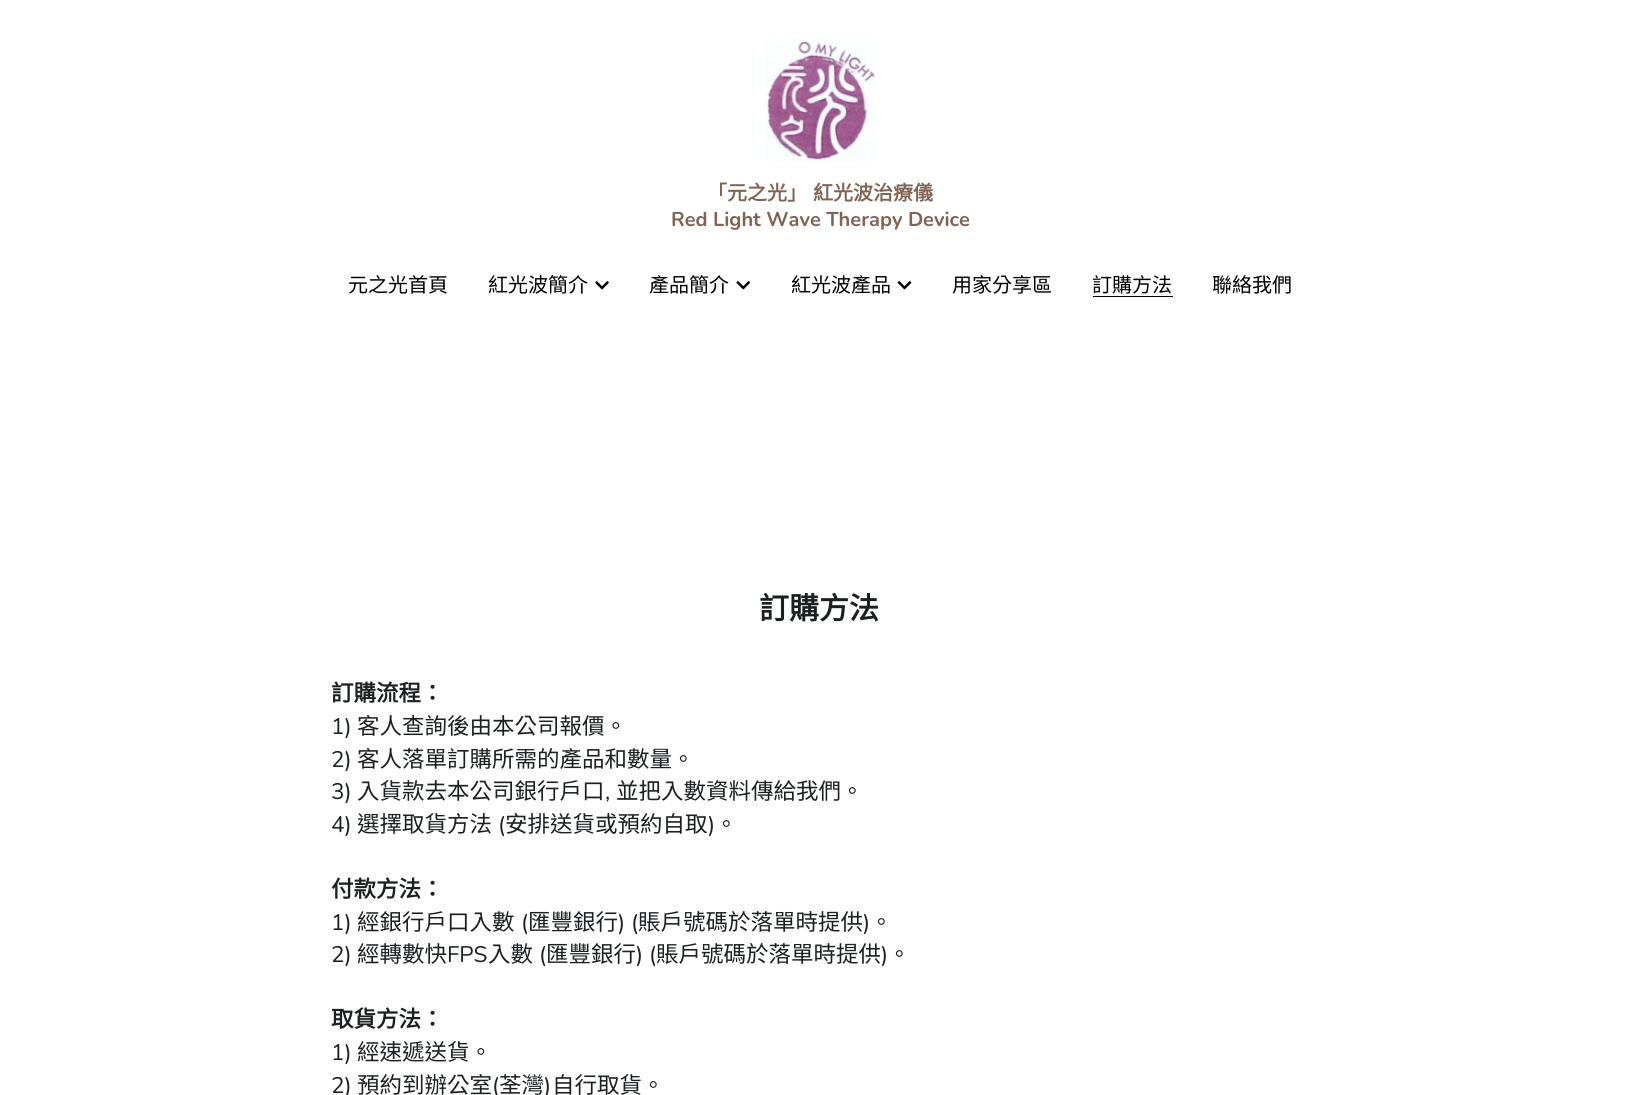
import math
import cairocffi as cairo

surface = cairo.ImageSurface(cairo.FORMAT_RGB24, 1640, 1095)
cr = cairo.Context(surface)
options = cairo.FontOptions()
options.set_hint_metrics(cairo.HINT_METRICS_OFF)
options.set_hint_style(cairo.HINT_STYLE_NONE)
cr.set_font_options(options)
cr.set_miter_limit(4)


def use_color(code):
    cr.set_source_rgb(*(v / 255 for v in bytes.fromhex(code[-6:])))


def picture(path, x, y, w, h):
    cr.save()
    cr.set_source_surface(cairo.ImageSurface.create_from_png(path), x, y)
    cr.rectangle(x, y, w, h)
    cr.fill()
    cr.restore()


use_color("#ffffff")
cr.paint()
picture("img1.png", 764, 38, 112, 124)
cr.select_font_face("Noto Sans CJK TC", cairo.FONT_SLANT_NORMAL, cairo.FONT_WEIGHT_BOLD)
cr.set_font_size(20)
use_color("#816354")
cr.move_to(707, 200)
cr.show_text("「元之光」")
cr.move_to(813, 200)
cr.show_text("紅光波治療儀")
cr.select_font_face("Nunito", cairo.FONT_SLANT_NORMAL, cairo.FONT_WEIGHT_BOLD)
cr.move_to(671, 226)
cr.show_text("Red Light Wave Therapy Device")
cr.select_font_face("Noto Sans CJK TC")
use_color("#000000")
cr.move_to(348, 292)
cr.show_text("元之光首頁")
cr.move_to(488, 292)
cr.show_text("紅光波簡介")
picture("img2.png", 595, 281, 14, 9)
cr.move_to(649, 292)
cr.show_text("產品簡介")
picture("img3.png", 736, 281, 14, 9)
cr.move_to(791, 292)
cr.show_text("紅光波產品")
picture("img4.png", 897, 281, 15, 9)
cr.move_to(952, 292)
cr.show_text("用家分享區")
cr.rectangle(1093, 296, 80, 1)
cr.fill()
cr.move_to(1092, 292)
cr.show_text("訂購方法")
cr.move_to(1212, 292)
cr.show_text("聯絡我們")
cr.select_font_face("Noto Sans CJK TC", cairo.FONT_SLANT_NORMAL, cairo.FONT_WEIGHT_BOLD)
cr.set_font_size(30)
use_color("#1d2023")
cr.move_to(759, 619)
cr.show_text("訂購方法")
cr.set_font_size(22.5)
cr.move_to(331, 701)
cr.show_text("訂購流程：")
cr.select_font_face("Nunito")
cr.move_to(331, 734)
cr.show_text("1)")
cr.select_font_face("Noto Sans CJK TC")
cr.move_to(357, 734)
cr.show_text("客人查詢後由本公司報價。")
cr.select_font_face("Nunito")
cr.move_to(331, 767)
cr.show_text("2)")
cr.select_font_face("Noto Sans CJK TC")
cr.move_to(357, 767)
cr.show_text("客人落單訂購所需的產品和數量。")
cr.select_font_face("Nunito")
cr.move_to(331, 799)
cr.show_text("3)")
cr.select_font_face("Noto Sans CJK TC")
cr.move_to(357, 799)
cr.show_text("入貨款去本公司銀行戶口")
cr.select_font_face("Nunito")
cr.move_to(605, 799)
cr.show_text(",")
cr.select_font_face("Noto Sans CJK TC")
cr.move_to(616, 799)
cr.show_text("並把入數資料傳給我們。")
cr.select_font_face("Nunito")
cr.move_to(331, 832)
cr.show_text("4)")
cr.select_font_face("Noto Sans CJK TC")
cr.move_to(357, 832)
cr.show_text("選擇取貨方法")
cr.select_font_face("Nunito")
cr.move_to(498, 832)
cr.show_text("(")
cr.select_font_face("Noto Sans CJK TC")
cr.move_to(505, 832)
cr.show_text("安排送貨或預約自取")
cr.select_font_face("Nunito")
cr.move_to(708, 832)
cr.show_text(")")
cr.select_font_face("Noto Sans CJK TC")
cr.move_to(715, 832)
cr.show_text("。")
cr.select_font_face("Noto Sans CJK TC", cairo.FONT_SLANT_NORMAL, cairo.FONT_WEIGHT_BOLD)
cr.move_to(331, 897)
cr.show_text("付款方法：")
cr.select_font_face("Nunito")
cr.move_to(331, 930)
cr.show_text("1)")
cr.select_font_face("Noto Sans CJK TC")
cr.move_to(357, 930)
cr.show_text("經銀行戶口入數")
cr.select_font_face("Nunito")
cr.move_to(521, 930)
cr.show_text("(")
cr.select_font_face("Noto Sans CJK TC")
cr.move_to(528, 930)
cr.show_text("匯豐銀行")
cr.select_font_face("Nunito")
cr.move_to(618, 930)
cr.show_text(") (")
cr.select_font_face("Noto Sans CJK TC")
cr.move_to(638, 930)
cr.show_text("賬戶號碼於落單時提供")
cr.select_font_face("Nunito")
cr.move_to(863, 930)
cr.show_text(")")
cr.select_font_face("Noto Sans CJK TC")
cr.move_to(870, 930)
cr.show_text("。")
cr.select_font_face("Nunito")
cr.move_to(331, 962)
cr.show_text("2)")
cr.select_font_face("Noto Sans CJK TC")
cr.move_to(357, 962)
cr.show_text("經轉數快")
cr.select_font_face("Nunito")
cr.move_to(447, 962)
cr.show_text("FPS")
cr.select_font_face("Noto Sans CJK TC")
cr.move_to(488, 962)
cr.show_text("入數")
cr.select_font_face("Nunito")
cr.move_to(539, 962)
cr.show_text("(")
cr.select_font_face("Noto Sans CJK TC")
cr.move_to(546, 962)
cr.show_text("匯豐銀行")
cr.select_font_face("Nunito")
cr.move_to(636, 962)
cr.show_text(") (")
cr.select_font_face("Noto Sans CJK TC")
cr.move_to(656, 962)
cr.show_text("賬戶號碼於落單時提供")
cr.select_font_face("Nunito")
cr.move_to(881, 962)
cr.show_text(")")
cr.select_font_face("Noto Sans CJK TC")
cr.move_to(888, 962)
cr.show_text("。")
cr.select_font_face("Noto Sans CJK TC", cairo.FONT_SLANT_NORMAL, cairo.FONT_WEIGHT_BOLD)
cr.move_to(331, 1027)
cr.show_text("取貨方法：")
cr.select_font_face("Nunito")
cr.move_to(331, 1060)
cr.show_text("1)")
cr.select_font_face("Noto Sans CJK TC")
cr.move_to(357, 1060)
cr.show_text("經速遞送貨。")
cr.select_font_face("Nunito")
cr.move_to(331, 1093)
cr.show_text("2)")
cr.select_font_face("Noto Sans CJK TC")
cr.move_to(357, 1093)
cr.show_text("預約到辦公室")
cr.select_font_face("Nunito")
cr.move_to(492, 1093)
cr.show_text("(")
cr.select_font_face("Noto Sans CJK TC")
cr.move_to(499, 1093)
cr.show_text("荃灣")
cr.select_font_face("Nunito")
cr.move_to(544, 1093)
cr.show_text(")")
cr.select_font_face("Noto Sans CJK TC")
cr.move_to(552, 1093)
cr.show_text("自行取貨。")
surface.write_to_png("result.png")
